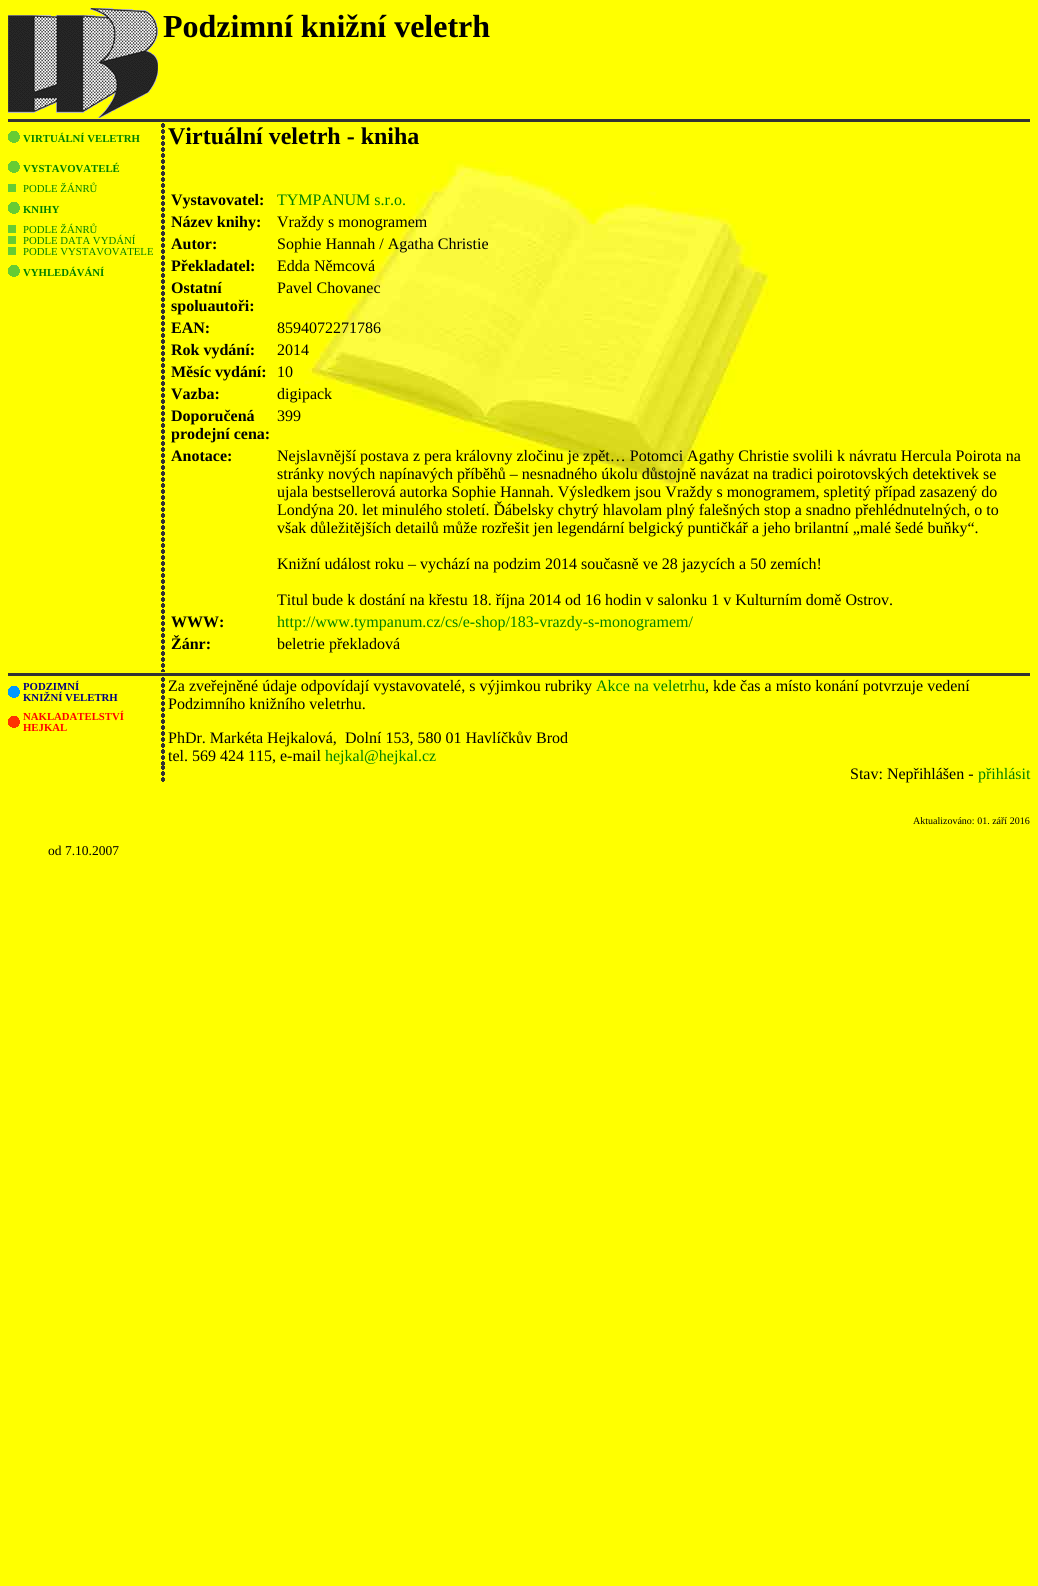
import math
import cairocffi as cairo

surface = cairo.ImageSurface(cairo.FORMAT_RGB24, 1038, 1586)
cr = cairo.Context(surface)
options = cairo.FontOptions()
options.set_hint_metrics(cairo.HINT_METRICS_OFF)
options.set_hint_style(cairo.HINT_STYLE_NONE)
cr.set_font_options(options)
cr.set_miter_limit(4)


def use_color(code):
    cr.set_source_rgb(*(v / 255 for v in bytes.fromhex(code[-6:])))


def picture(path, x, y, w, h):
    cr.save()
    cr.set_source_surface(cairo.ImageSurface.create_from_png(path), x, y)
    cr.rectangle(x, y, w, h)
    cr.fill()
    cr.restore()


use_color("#ffff00")
cr.paint()
picture("img1.png", 304, 160, 465, 331)
picture("img2.png", 8, 8, 150, 110)
cr.select_font_face("Liberation Serif", cairo.FONT_SLANT_NORMAL, cairo.FONT_WEIGHT_BOLD)
cr.set_font_size(32)
use_color("#000000")
cr.move_to(163, 37)
cr.show_text("Podzimní knižní veletrh")
use_color("#333333")
cr.rectangle(8, 119, 1022, 3)
cr.fill()
picture("img3.png", 8, 131, 12, 12)
cr.set_font_size(10.75)
use_color("#008000")
cr.move_to(23, 142)
cr.show_text("VIRTUÁLNÍ VELETRH")
picture("img3.png", 8, 161, 12, 12)
cr.move_to(23, 172)
cr.show_text("VYSTAVOVATELÉ")
use_color("#66cc33")
cr.rectangle(8, 184, 8, 8)
cr.fill()
cr.select_font_face("Liberation Serif")
use_color("#008000")
cr.move_to(23, 192)
cr.show_text("PODLE ŽÁNRŮ")
picture("img3.png", 8, 202, 12, 12)
cr.select_font_face("Liberation Serif", cairo.FONT_SLANT_NORMAL, cairo.FONT_WEIGHT_BOLD)
cr.move_to(23, 213)
cr.show_text("KNIHY")
use_color("#66cc33")
cr.rectangle(8, 225, 8, 8)
cr.fill()
cr.select_font_face("Liberation Serif")
use_color("#008000")
cr.move_to(23, 233)
cr.show_text("PODLE ŽÁNRŮ")
use_color("#66cc33")
cr.rectangle(8, 236, 8, 8)
cr.fill()
use_color("#008000")
cr.move_to(23, 244)
cr.show_text("PODLE DATA VYDÁNÍ")
use_color("#66cc33")
cr.rectangle(8, 247, 8, 8)
cr.fill()
use_color("#008000")
cr.move_to(23, 255)
cr.show_text("PODLE VYSTAVOVATELE")
picture("img3.png", 8, 265, 12, 12)
cr.select_font_face("Liberation Serif", cairo.FONT_SLANT_NORMAL, cairo.FONT_WEIGHT_BOLD)
cr.move_to(23, 276)
cr.show_text("VYHLEDÁVÁNÍ")
picture("img4.png", 161, 123, 4, 549)
cr.set_font_size(24)
use_color("#000000")
cr.move_to(168, 144)
cr.show_text("Virtuální veletrh - kniha")
cr.set_font_size(16)
cr.move_to(171, 205)
cr.show_text("Vystavovatel:")
cr.select_font_face("Liberation Serif")
use_color("#008000")
cr.move_to(277, 205)
cr.show_text("TYMPANUM s.r.o.")
cr.select_font_face("Liberation Serif", cairo.FONT_SLANT_NORMAL, cairo.FONT_WEIGHT_BOLD)
use_color("#000000")
cr.move_to(171, 227)
cr.show_text("Název knihy:")
cr.select_font_face("Liberation Serif")
cr.move_to(277, 227)
cr.show_text("Vraždy s monogramem")
cr.select_font_face("Liberation Serif", cairo.FONT_SLANT_NORMAL, cairo.FONT_WEIGHT_BOLD)
cr.move_to(171, 249)
cr.show_text("Autor:")
cr.select_font_face("Liberation Serif")
cr.move_to(277, 249)
cr.show_text("Sophie Hannah / Agatha Christie")
cr.select_font_face("Liberation Serif", cairo.FONT_SLANT_NORMAL, cairo.FONT_WEIGHT_BOLD)
cr.move_to(171, 271)
cr.show_text("Překladatel:")
cr.select_font_face("Liberation Serif")
cr.move_to(277, 271)
cr.show_text("Edda Němcová")
cr.select_font_face("Liberation Serif", cairo.FONT_SLANT_NORMAL, cairo.FONT_WEIGHT_BOLD)
cr.move_to(171, 293)
cr.show_text("Ostatní")
cr.move_to(171, 311)
cr.show_text("spoluautoři:")
cr.select_font_face("Liberation Serif")
cr.move_to(277, 293)
cr.show_text("Pavel Chovanec")
cr.select_font_face("Liberation Serif", cairo.FONT_SLANT_NORMAL, cairo.FONT_WEIGHT_BOLD)
cr.move_to(171, 333)
cr.show_text("EAN:")
cr.select_font_face("Liberation Serif")
cr.move_to(277, 333)
cr.show_text("8594072271786")
cr.select_font_face("Liberation Serif", cairo.FONT_SLANT_NORMAL, cairo.FONT_WEIGHT_BOLD)
cr.move_to(171, 355)
cr.show_text("Rok vydání:")
cr.select_font_face("Liberation Serif")
cr.move_to(277, 355)
cr.show_text("2014")
cr.select_font_face("Liberation Serif", cairo.FONT_SLANT_NORMAL, cairo.FONT_WEIGHT_BOLD)
cr.move_to(171, 377)
cr.show_text("Měsíc vydání:")
cr.select_font_face("Liberation Serif")
cr.move_to(277, 377)
cr.show_text("10")
cr.select_font_face("Liberation Serif", cairo.FONT_SLANT_NORMAL, cairo.FONT_WEIGHT_BOLD)
cr.move_to(171, 399)
cr.show_text("Vazba:")
cr.select_font_face("Liberation Serif")
cr.move_to(277, 399)
cr.show_text("digipack")
cr.select_font_face("Liberation Serif", cairo.FONT_SLANT_NORMAL, cairo.FONT_WEIGHT_BOLD)
cr.move_to(171, 421)
cr.show_text("Doporučená")
cr.move_to(171, 439)
cr.show_text("prodejní cena:")
cr.select_font_face("Liberation Serif")
cr.move_to(277, 421)
cr.show_text("399")
cr.select_font_face("Liberation Serif", cairo.FONT_SLANT_NORMAL, cairo.FONT_WEIGHT_BOLD)
cr.move_to(171, 461)
cr.show_text("Anotace:")
cr.select_font_face("Liberation Serif")
cr.move_to(277, 461)
cr.show_text("Nejslavnější postava z pera královny zločinu je zpět… Potomci Agathy Christie svolili k návratu Hercula Poirota na")
cr.move_to(277, 479)
cr.show_text("stránky nových napínavých příběhů – nesnadného úkolu důstojně navázat na tradici poirotovských detektivek se")
cr.move_to(277, 497)
cr.show_text("ujala bestsellerová autorka Sophie Hannah. Výsledkem jsou Vraždy s monogramem, spletitý případ zasazený do")
cr.move_to(277, 515)
cr.show_text("Londýna 20. let minulého století. Ďábelsky chytrý hlavolam plný falešných stop a snadno přehlédnutelných, o to")
cr.move_to(277, 533)
cr.show_text("však důležitějších detailů může rozřešit jen legendární belgický puntičkář a jeho brilantní „malé šedé buňky“.")
cr.move_to(277, 569)
cr.show_text("Knižní událost roku – vychází na podzim 2014 současně ve 28 jazycích a 50 zemích!")
cr.move_to(277, 605)
cr.show_text("Titul bude k dostání na křestu 18. října 2014 od 16 hodin v salonku 1 v Kulturním domě Ostrov.")
cr.select_font_face("Liberation Serif", cairo.FONT_SLANT_NORMAL, cairo.FONT_WEIGHT_BOLD)
cr.move_to(171, 627)
cr.show_text("WWW:")
cr.select_font_face("Liberation Serif")
use_color("#008000")
cr.move_to(277, 627)
cr.show_text("http://www.tympanum.cz/cs/e-shop/183-vrazdy-s-monogramem/")
cr.select_font_face("Liberation Serif", cairo.FONT_SLANT_NORMAL, cairo.FONT_WEIGHT_BOLD)
use_color("#000000")
cr.move_to(171, 649)
cr.show_text("Žánr:")
cr.select_font_face("Liberation Serif")
cr.move_to(277, 649)
cr.show_text("beletrie překladová")
use_color("#333333")
cr.rectangle(8, 673, 1022, 3)
cr.fill()
picture("img5.png", 8, 686, 12, 12)
cr.select_font_face("Liberation Serif", cairo.FONT_SLANT_NORMAL, cairo.FONT_WEIGHT_BOLD)
cr.set_font_size(10.75)
use_color("#000080")
cr.move_to(23, 690)
cr.show_text("PODZIMNÍ")
cr.move_to(23, 701)
cr.show_text("KNIŽNÍ VELETRH")
picture("img6.png", 8, 716, 12, 12)
use_color("#ff0000")
cr.move_to(23, 720)
cr.show_text("NAKLADATELSTVÍ")
cr.move_to(23, 731)
cr.show_text("HEJKAL")
picture("img7.png", 161, 677, 4, 88)
cr.select_font_face("Liberation Serif")
cr.set_font_size(16)
use_color("#000000")
cr.move_to(168, 691)
cr.show_text("Za zveřejněné údaje odpovídají vystavovatelé, s výjimkou rubriky")
use_color("#008000")
cr.move_to(596, 691)
cr.show_text("Akce na veletrhu")
use_color("#000000")
cr.move_to(705, 691)
cr.show_text(", kde čas a místo konání potvrzuje vedení")
cr.move_to(168, 709)
cr.show_text("Podzimního knižního veletrhu.")
cr.move_to(168, 743)
cr.show_text("PhDr. Markéta Hejkalová,")
cr.move_to(345, 743)
cr.show_text("Dolní 153, 580 01 Havlíčkův Brod")
cr.move_to(168, 761)
cr.show_text("tel. 569 424 115, e-mail")
use_color("#008000")
cr.move_to(325, 761)
cr.show_text("hejkal@hejkal.cz")
picture("img8.png", 161, 765, 4, 17)
use_color("#000000")
cr.move_to(850, 779)
cr.show_text("Stav: Nepřihlášen -")
use_color("#008000")
cr.move_to(978, 779)
cr.show_text("přihlásit")
cr.set_font_size(10)
use_color("#000000")
cr.move_to(913, 824)
cr.show_text("Aktualizováno: 01. září 2016")
cr.set_font_size(13.5)
cr.move_to(48, 855)
cr.show_text("od 7.10.2007")
surface.write_to_png("result.png")
